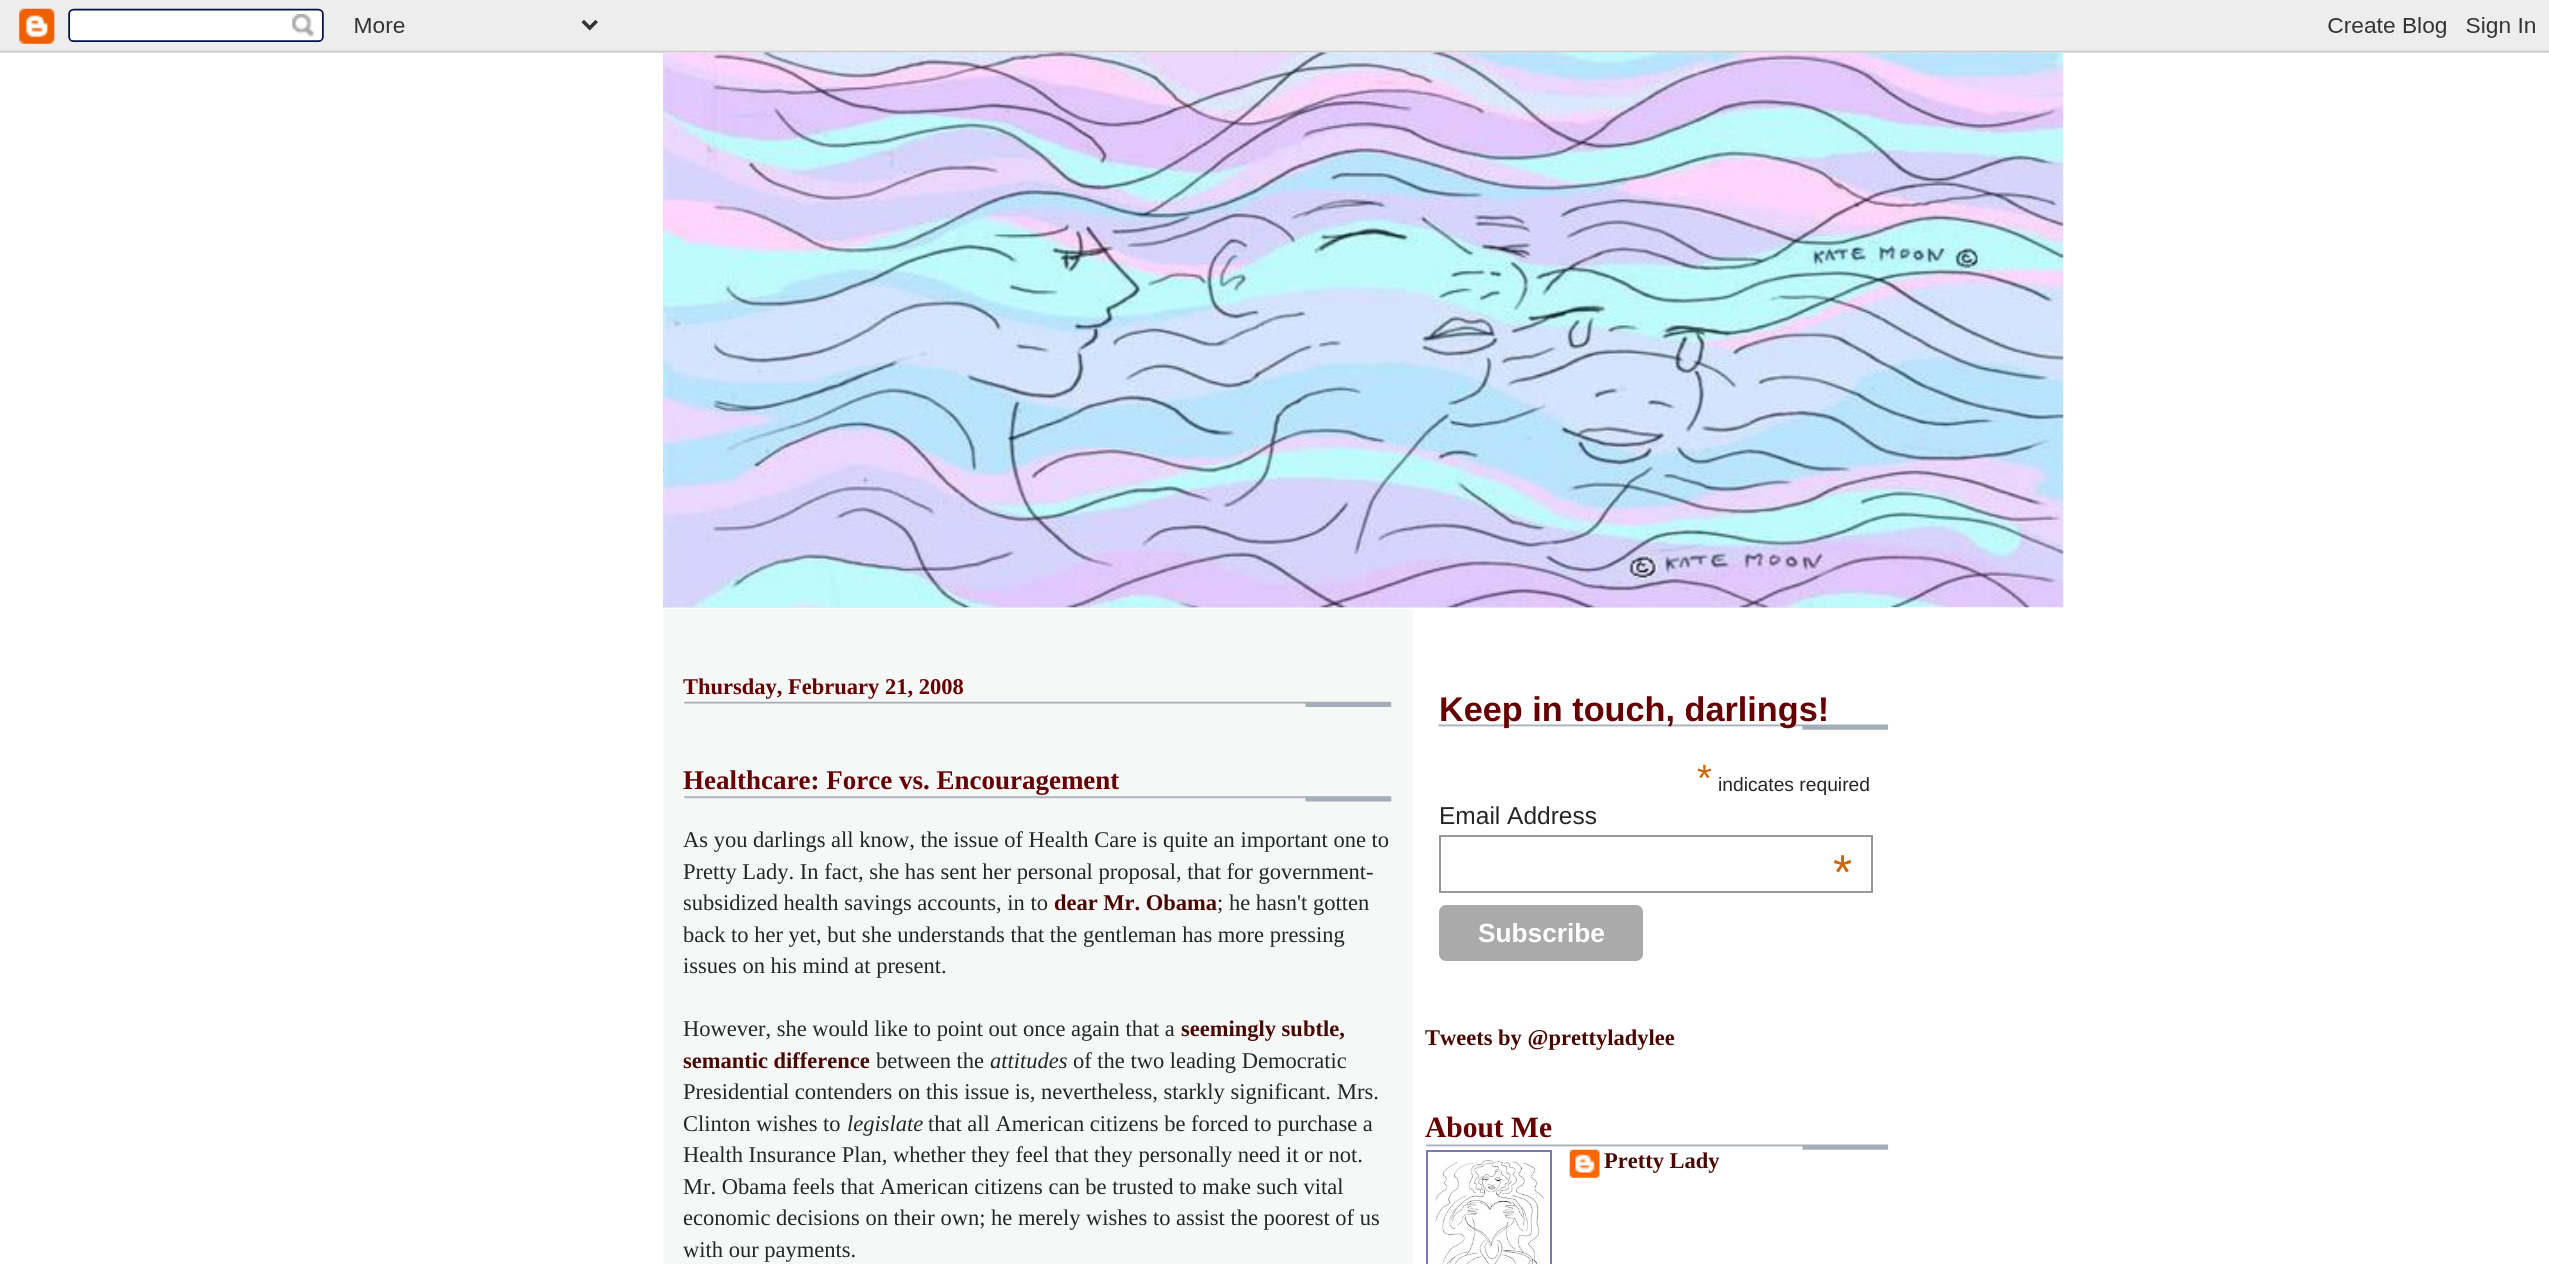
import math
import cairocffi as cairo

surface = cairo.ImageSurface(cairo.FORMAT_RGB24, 2549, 1264)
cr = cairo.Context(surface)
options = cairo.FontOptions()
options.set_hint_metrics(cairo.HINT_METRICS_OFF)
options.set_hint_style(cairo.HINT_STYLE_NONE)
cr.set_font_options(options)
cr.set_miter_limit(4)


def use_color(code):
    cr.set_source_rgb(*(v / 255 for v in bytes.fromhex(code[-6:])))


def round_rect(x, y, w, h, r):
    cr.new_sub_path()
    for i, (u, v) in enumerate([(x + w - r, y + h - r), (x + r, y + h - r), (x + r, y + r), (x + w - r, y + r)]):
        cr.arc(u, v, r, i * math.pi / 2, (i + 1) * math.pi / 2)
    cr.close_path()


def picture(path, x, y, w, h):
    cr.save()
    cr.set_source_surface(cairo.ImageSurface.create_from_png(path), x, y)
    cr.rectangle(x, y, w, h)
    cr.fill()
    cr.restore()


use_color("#ffffff")
cr.paint()
picture("img1.png", 0, 0, 2549, 53)
picture("img2.png", 663, 53, 751, 1211)
use_color("#ffffff")
cr.rectangle(663, 607, 749, 2)
cr.fill()
picture("img3.png", 663, 52, 1226, 556)
picture("img4.png", 663, 392, 1226, 216)
picture("img5.png", 663, 52, 1401, 556)
picture("img6.png", 684, 701, 708, 6)
cr.select_font_face("Liberation Serif", cairo.FONT_SLANT_NORMAL, cairo.FONT_WEIGHT_BOLD)
cr.set_font_size(22.5)
use_color("#660000")
cr.move_to(683, 694)
cr.show_text("Thursday, February 21, 2008")
picture("img7.png", 684, 796, 708, 6)
cr.set_font_size(27)
cr.move_to(683, 789)
cr.show_text("Healthcare: Force vs. Encouragement")
cr.select_font_face("Liberation Serif")
cr.set_font_size(22.5)
use_color("#232527")
cr.move_to(683, 847)
cr.show_text("As you darlings all know, the issue of Health Care is quite an important one to")
cr.move_to(683, 879)
cr.show_text("Pretty Lady. In fact, she has sent her personal proposal, that for government-")
cr.move_to(683, 910)
cr.show_text("subsidized health savings accounts, in to")
cr.select_font_face("Liberation Serif", cairo.FONT_SLANT_NORMAL, cairo.FONT_WEIGHT_BOLD)
use_color("#4a0701")
cr.move_to(1054, 910)
cr.show_text("dear Mr. Obama")
cr.select_font_face("Liberation Serif")
use_color("#232527")
cr.move_to(1217, 910)
cr.show_text("; he hasn't gotten")
cr.move_to(683, 942)
cr.show_text("back to her yet, but she understands that the gentleman has more pressing")
cr.move_to(683, 973)
cr.show_text("issues on his mind at present.")
cr.move_to(683, 1036)
cr.show_text("However, she would like to point out once again that a")
cr.select_font_face("Liberation Serif", cairo.FONT_SLANT_NORMAL, cairo.FONT_WEIGHT_BOLD)
use_color("#4a0701")
cr.move_to(1181, 1036)
cr.show_text("seemingly subtle,")
cr.move_to(683, 1068)
cr.show_text("semantic difference")
cr.select_font_face("Liberation Serif")
use_color("#232527")
cr.move_to(876, 1068)
cr.show_text("between the")
cr.select_font_face("Liberation Serif", cairo.FONT_SLANT_ITALIC)
cr.move_to(990, 1068)
cr.show_text("attitudes")
cr.select_font_face("Liberation Serif")
cr.move_to(1073, 1068)
cr.show_text("of the two leading Democratic")
cr.move_to(683, 1099)
cr.show_text("Presidential contenders on this issue is, nevertheless, starkly significant.")
cr.move_to(1337, 1099)
cr.show_text("Mrs.")
cr.move_to(683, 1131)
cr.show_text("Clinton wishes to")
cr.select_font_face("Liberation Serif", cairo.FONT_SLANT_ITALIC)
cr.move_to(847, 1131)
cr.show_text("legislate")
cr.select_font_face("Liberation Serif")
cr.move_to(928, 1131)
cr.show_text("that all American citizens be forced to purchase a")
cr.move_to(683, 1162)
cr.show_text("Health Insurance Plan, whether they feel that they personally need it or not.")
cr.move_to(683, 1194)
cr.show_text("Mr. Obama feels that American citizens can be trusted to make such vital")
cr.move_to(683, 1225)
cr.show_text("economic decisions on their own; he merely wishes to assist the poorest of us")
cr.move_to(683, 1257)
cr.show_text("with our payments.")
picture("img8.png", 1438, 724, 451, 6)
cr.select_font_face("Liberation Sans", cairo.FONT_SLANT_NORMAL, cairo.FONT_WEIGHT_BOLD)
cr.set_font_size(34.25)
use_color("#660000")
cr.move_to(1439, 721)
cr.show_text("Keep in touch, darlings!")
cr.select_font_face("Liberation Sans")
cr.set_font_size(38)
use_color("#cc6600")
cr.move_to(1697, 791)
cr.show_text("*")
cr.set_font_size(19.25)
use_color("#232527")
cr.move_to(1718, 791)
cr.show_text("indicates required")
cr.set_font_size(24.5)
cr.move_to(1439, 824)
cr.show_text("Email Address")
cr.rectangle(1440, 836, 432, 56)
use_color("#999999")
cr.stroke()
cr.set_font_size(49)
use_color("#cc6600")
cr.move_to(1833, 889)
cr.show_text("*")
use_color("#aaaaaa")
round_rect(1439, 905, 204, 56, 7)
cr.fill()
cr.select_font_face("Liberation Sans", cairo.FONT_SLANT_NORMAL, cairo.FONT_WEIGHT_BOLD)
cr.set_font_size(26.25)
use_color("#ffffff")
cr.move_to(1478, 942)
cr.show_text("Subscribe")
cr.select_font_face("Liberation Serif", cairo.FONT_SLANT_NORMAL, cairo.FONT_WEIGHT_BOLD)
cr.set_font_size(22.5)
use_color("#4a0701")
cr.move_to(1425, 1045)
cr.show_text("Tweets by @prettyladylee")
picture("img9.png", 1426, 1144, 463, 6)
cr.set_font_size(29.5)
use_color("#660000")
cr.move_to(1425, 1137)
cr.show_text("About Me")
cr.rectangle(1427, 1151, 124, 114)
use_color("#7c78b5")
cr.stroke()
picture("img10.png", 1435, 1160, 109, 104)
picture("img11.png", 1569, 1149, 31, 29)
cr.set_font_size(22.5)
use_color("#4a0701")
cr.move_to(1604, 1168)
cr.show_text("Pretty Lady")
surface.write_to_png("result.png")
